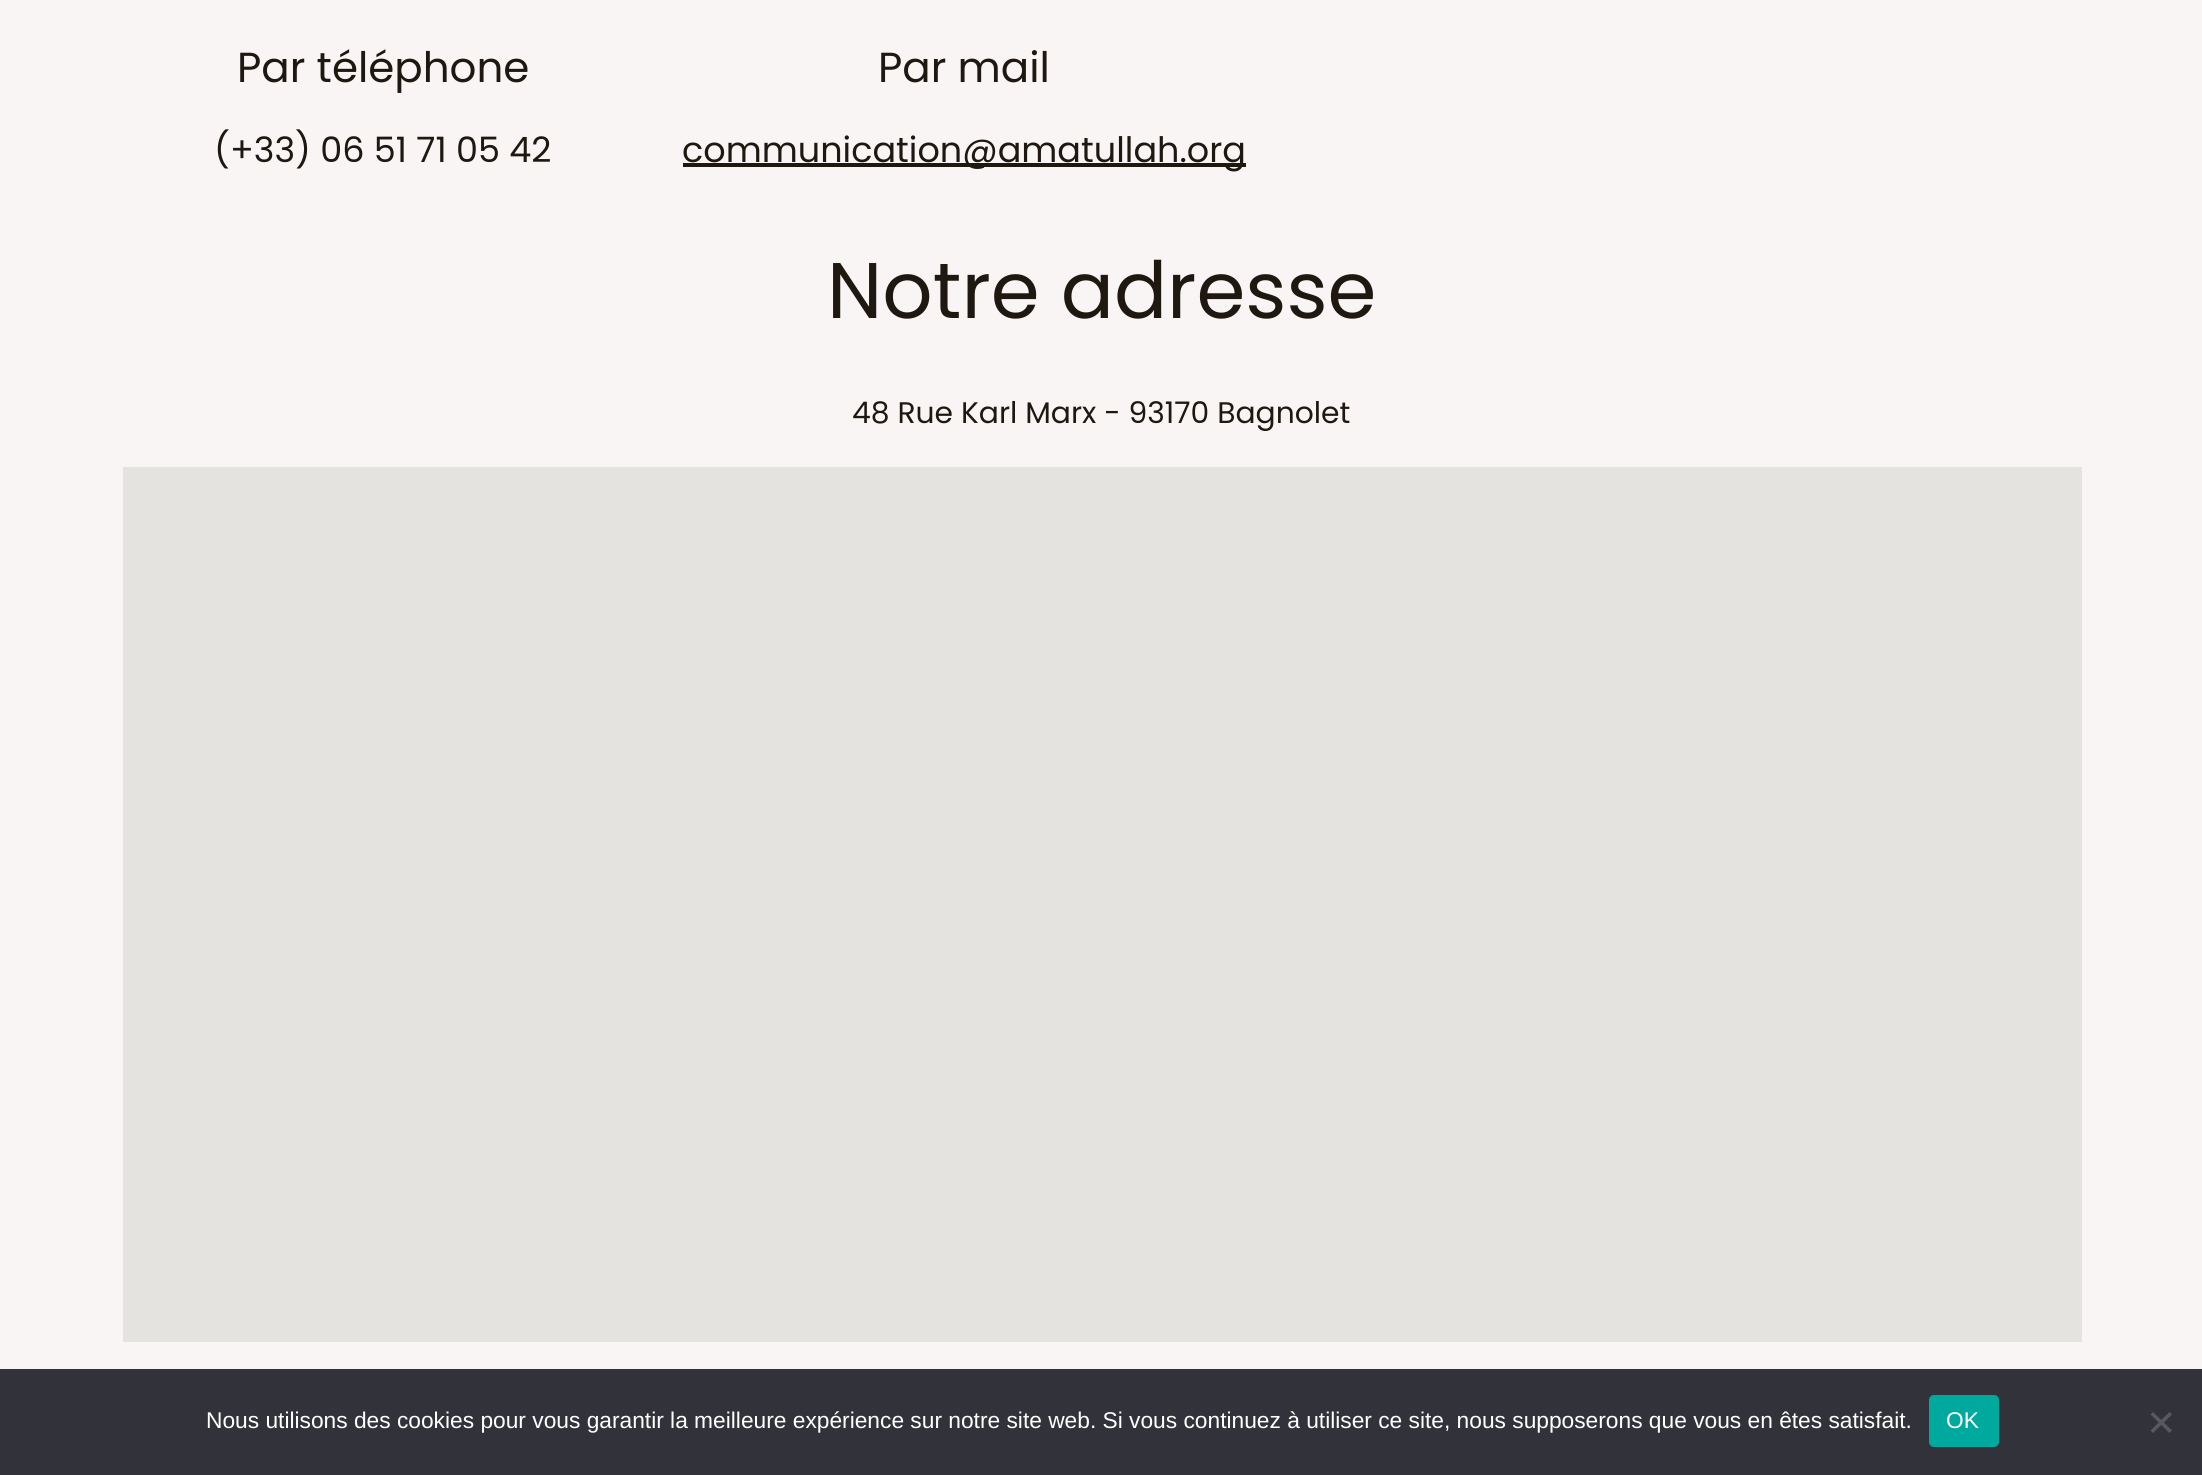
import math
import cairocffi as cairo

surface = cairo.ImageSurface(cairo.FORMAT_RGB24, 2202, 1475)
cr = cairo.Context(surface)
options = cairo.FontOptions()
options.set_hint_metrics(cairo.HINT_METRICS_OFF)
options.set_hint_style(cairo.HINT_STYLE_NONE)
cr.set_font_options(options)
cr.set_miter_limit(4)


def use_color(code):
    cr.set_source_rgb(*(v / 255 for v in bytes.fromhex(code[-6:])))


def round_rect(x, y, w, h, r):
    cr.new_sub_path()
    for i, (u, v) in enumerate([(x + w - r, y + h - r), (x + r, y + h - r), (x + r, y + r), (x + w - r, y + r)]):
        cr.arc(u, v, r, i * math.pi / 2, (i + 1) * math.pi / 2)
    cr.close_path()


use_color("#f9f5f5")
cr.paint()
cr.select_font_face("Poppins")
cr.set_font_size(42)
use_color("#1e1810")
cr.move_to(237, 82)
cr.show_text("Par téléphone")
cr.set_font_size(35)
cr.move_to(214, 162)
cr.show_text("(+33) 06 51 71 05 42")
cr.set_font_size(42)
cr.move_to(878, 82)
cr.show_text("Par mail")
cr.rectangle(683, 163, 563, 4)
cr.fill()
cr.set_font_size(35)
cr.move_to(682, 162)
cr.show_text("communication@amatullah.org")
cr.set_font_size(78.75)
cr.move_to(827, 318)
cr.show_text("Notre adresse")
cr.set_font_size(29.75)
cr.move_to(852, 423)
cr.show_text("48 Rue Karl Marx - 93170 Bagnolet")
use_color("#e5e3df")
cr.rectangle(123, 467, 1959, 875)
cr.fill()
use_color("#32323a")
cr.rectangle(0, 1369, 2202, 106)
cr.fill()
cr.select_font_face("Liberation Sans")
cr.set_font_size(22.75)
use_color("#ffffff")
cr.move_to(206, 1428)
cr.show_text("Nous utilisons des cookies pour vous garantir la meilleure expérience sur notre site web. Si vous continuez à utiliser ce site, nous supposerons que vous en êtes satisfait.")
use_color("#00a99d")
round_rect(1929, 1395, 70, 52, 5)
cr.fill()
use_color("#ffffff")
cr.move_to(1946, 1428)
cr.show_text("OK")
use_color("#59595d")
cr.new_path()
cr.move_to(2169.5, 1412)
cr.line_to(2172, 1414.5)
cr.line_to(2153, 1433)
cr.line_to(2150.5, 1430.5)
cr.close_path()
cr.fill()
cr.new_path()
cr.move_to(2150.5, 1414.5)
cr.line_to(2153, 1412)
cr.line_to(2172, 1430.5)
cr.line_to(2169.5, 1433)
cr.close_path()
cr.fill()
surface.write_to_png("result.png")
